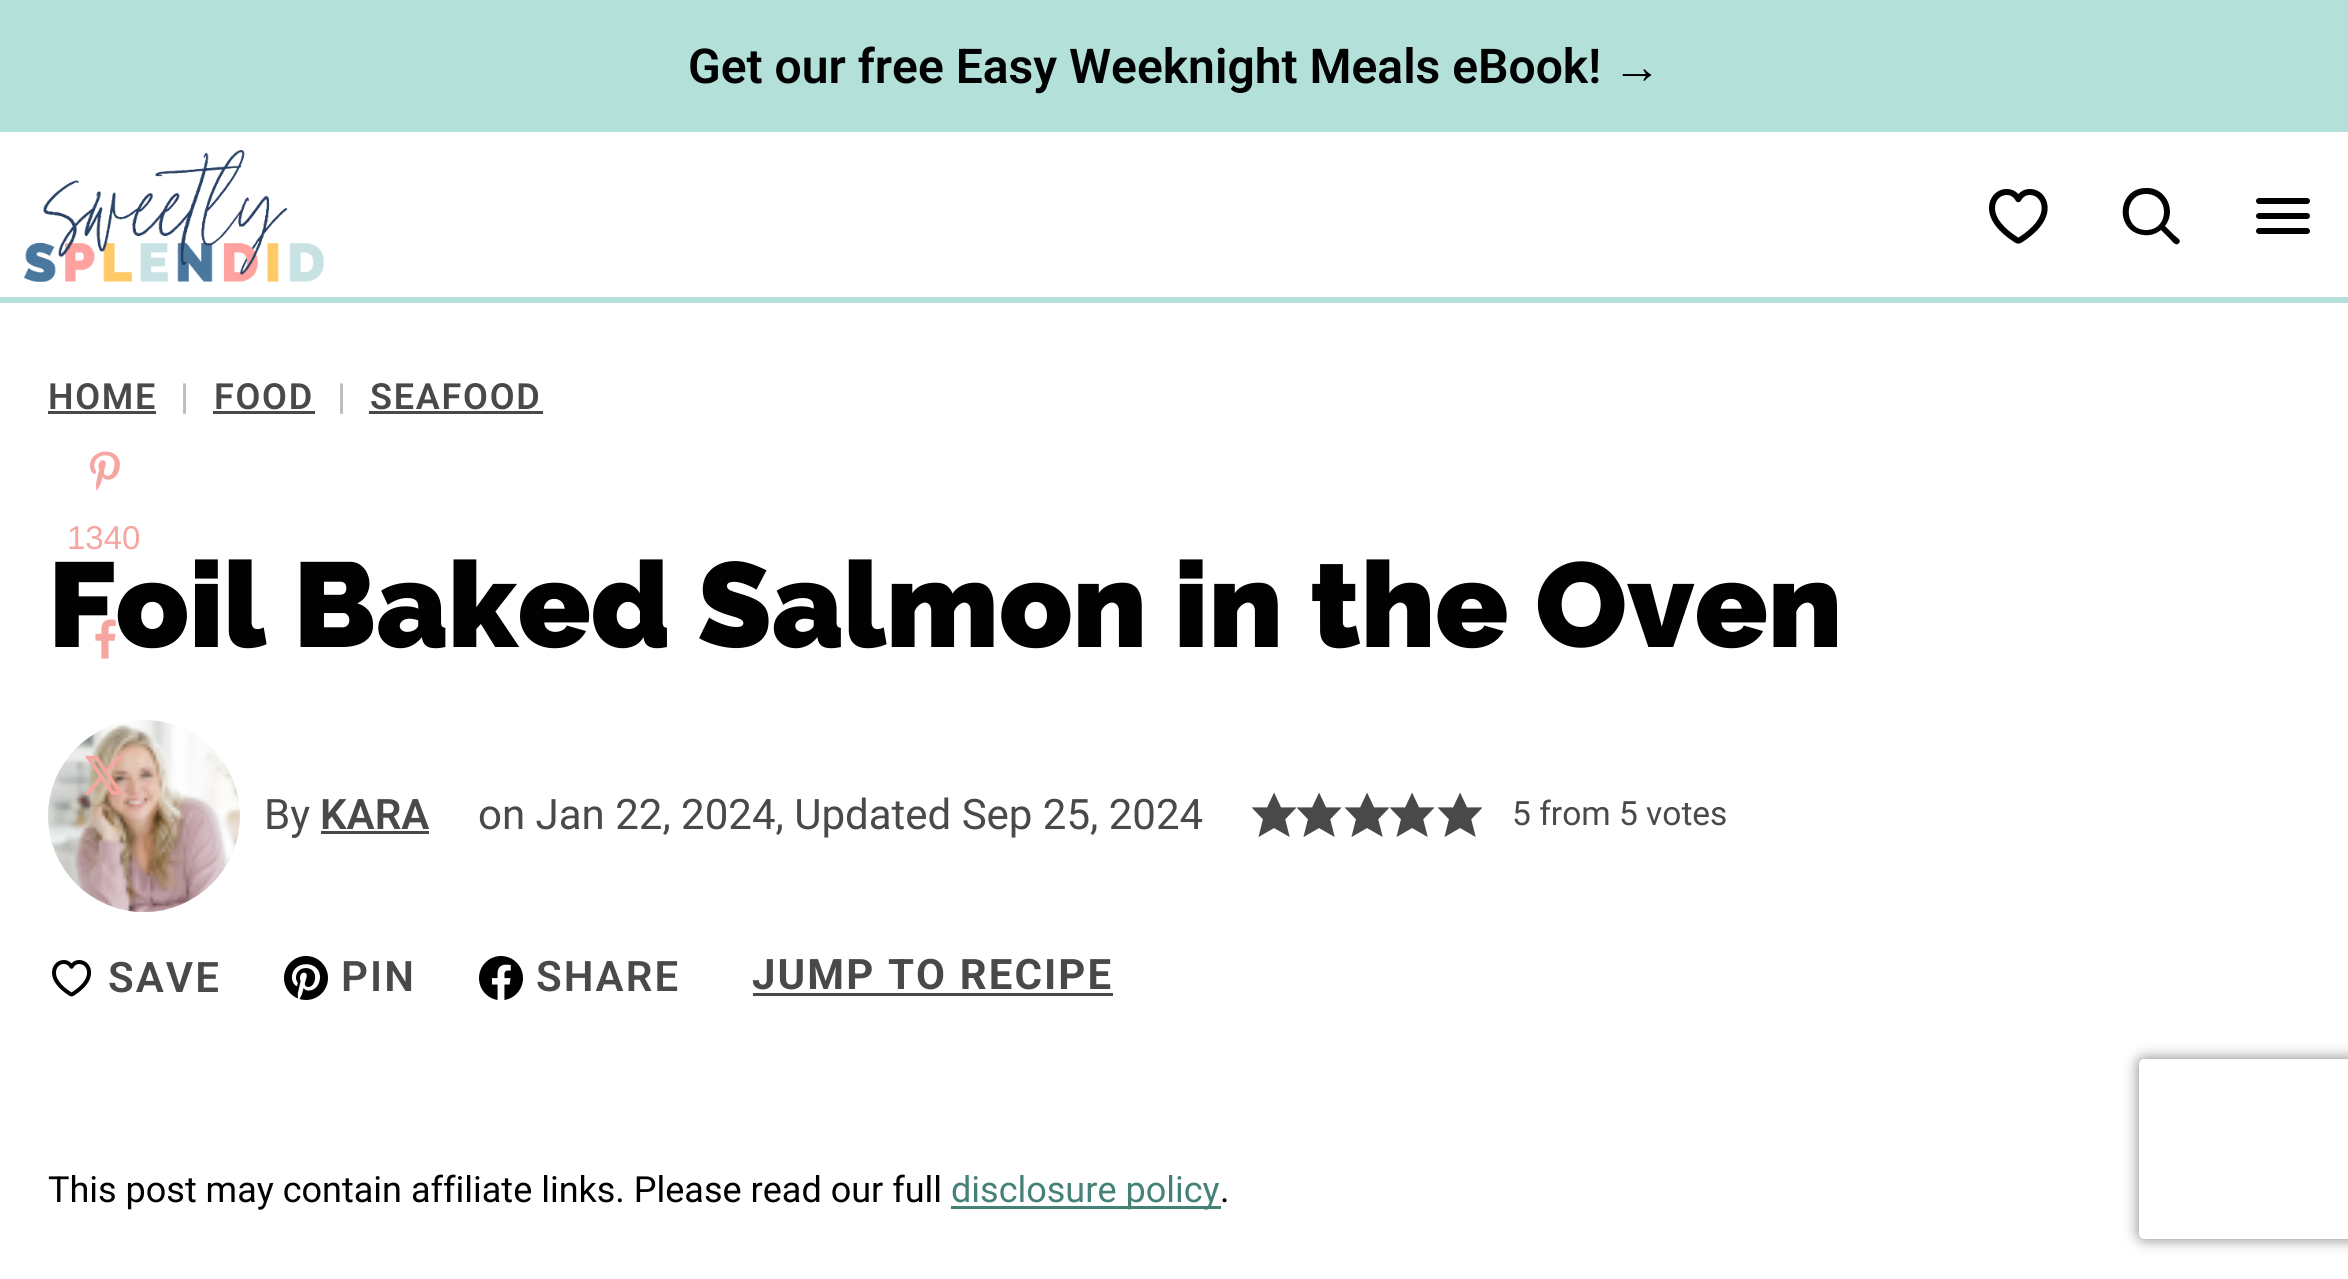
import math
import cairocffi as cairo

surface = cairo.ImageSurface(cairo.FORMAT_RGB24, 2348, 1279)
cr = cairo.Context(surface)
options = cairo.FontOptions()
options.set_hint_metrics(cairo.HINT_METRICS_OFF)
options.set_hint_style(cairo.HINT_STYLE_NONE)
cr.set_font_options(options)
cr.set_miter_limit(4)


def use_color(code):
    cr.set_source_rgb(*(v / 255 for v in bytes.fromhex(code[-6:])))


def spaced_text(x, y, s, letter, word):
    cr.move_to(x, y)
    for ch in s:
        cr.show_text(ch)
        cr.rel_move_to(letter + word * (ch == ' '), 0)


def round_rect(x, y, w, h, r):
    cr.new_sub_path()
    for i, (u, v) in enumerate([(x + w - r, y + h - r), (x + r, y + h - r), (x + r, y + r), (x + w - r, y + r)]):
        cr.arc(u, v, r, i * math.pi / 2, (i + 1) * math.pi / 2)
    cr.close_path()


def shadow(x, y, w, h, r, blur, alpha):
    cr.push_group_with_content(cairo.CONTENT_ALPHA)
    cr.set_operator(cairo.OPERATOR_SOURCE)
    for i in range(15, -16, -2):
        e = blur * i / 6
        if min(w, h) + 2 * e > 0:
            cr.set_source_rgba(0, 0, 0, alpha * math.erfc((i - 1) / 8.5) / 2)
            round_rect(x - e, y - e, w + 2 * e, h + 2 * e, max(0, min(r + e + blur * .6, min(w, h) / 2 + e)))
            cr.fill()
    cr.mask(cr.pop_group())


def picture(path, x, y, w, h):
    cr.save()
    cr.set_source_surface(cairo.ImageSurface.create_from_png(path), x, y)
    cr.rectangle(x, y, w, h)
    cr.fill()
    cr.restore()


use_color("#ffffff")
cr.paint()
use_color("#b4e0da")
cr.rectangle(0, 0, 2348, 132)
cr.fill()
cr.select_font_face("Roboto SemiBold")
cr.set_font_size(48)
use_color("#010101")
cr.move_to(688, 83)
cr.show_text("Get our free Easy Weeknight Meals eBook!")
cr.select_font_face("Liberation Sans", cairo.FONT_SLANT_NORMAL, cairo.FONT_WEIGHT_BOLD)
cr.move_to(1613, 83)
cr.show_text("→")
use_color("#b4e0da")
cr.rectangle(0, 297, 2348, 6)
cr.fill()
picture("img1.png", 24, 150, 300, 132)
picture("img2.png", 1989, 189, 59, 55)
use_color("#000000")
cr.set_fill_rule(cairo.FILL_RULE_EVEN_ODD)
cr.new_path()
cr.move_to(2146, 188)
cr.curve_to(2166, 187, 2177, 211, 2165, 226)
cr.line_to(2174, 235)
cr.curve_to(2176, 237, 2182, 240, 2179, 243)
cr.curve_to(2176, 247, 2172, 241, 2170, 239)
cr.line_to(2161, 230)
cr.curve_to(2156, 234, 2150, 236, 2143, 235)
cr.curve_to(2114, 231, 2117, 188, 2146, 188)
cr.close_path()
cr.move_to(2146, 194)
cr.curve_to(2123, 194, 2123, 230, 2146, 230)
cr.curve_to(2170, 230, 2170, 194, 2146, 194)
cr.close_path()
cr.fill()
picture("img3.png", 2256, 198, 54, 36)
cr.select_font_face("Roboto SemiBold")
cr.set_font_size(36)
use_color("#494949")
spaced_text(48, 409, "HOME", 1.75, 0)
cr.rectangle(48, 411, 108, 3)
cr.fill()
use_color("#bdbdbd")
spaced_text(180, 409, "|", 1.75, 0)
use_color("#494949")
spaced_text(214, 409, "FOOD", 1.75, 0)
cr.rectangle(213, 411, 102, 3)
cr.fill()
use_color("#bdbdbd")
spaced_text(337, 409, "|", 1.75, 0)
use_color("#494949")
spaced_text(370, 409, "SEAFOOD", 1.75, 0)
cr.rectangle(369, 411, 174, 3)
cr.fill()
cr.select_font_face("Raleway Thin")
cr.set_font_size(120)
use_color("#010101")
cr.move_to(48, 647)
cr.show_text("Foil Baked Salmon in the Oven")
picture("img4.png", 48, 720, 192, 192)
cr.select_font_face("Roboto")
cr.set_font_size(42)
use_color("#494949")
cr.move_to(264, 829)
cr.show_text("By")
cr.select_font_face("Roboto SemiBold")
cr.move_to(320, 829)
cr.show_text("KARA")
cr.rectangle(321, 831, 108, 3)
cr.fill()
cr.select_font_face("Roboto")
cr.move_to(478, 829)
cr.show_text("on Jan 22, 2024, Updated Sep 25, 2024")
picture("img5.png", 1251, 792, 45, 45)
picture("img6.png", 1296, 792, 46, 45)
picture("img5.png", 1344, 792, 45, 45)
picture("img6.png", 1389, 792, 46, 45)
picture("img5.png", 1437, 792, 45, 45)
cr.set_font_size(33.5)
cr.move_to(1512, 825)
cr.show_text("5 from 5 votes")
picture("img7.png", 52, 960, 40, 37)
cr.select_font_face("Roboto SemiBold")
cr.set_font_size(42)
spaced_text(108, 992, "SAVE", 2.1, 0)
picture("img8.png", 284, 956, 44, 44)
spaced_text(341, 991, "PIN", 2.1, 0)
picture("img9.png", 479, 956, 44, 44)
spaced_text(536, 991, "SHARE", 2.1, 0)
cr.select_font_face("Roboto", cairo.FONT_SLANT_NORMAL, cairo.FONT_WEIGHT_BOLD)
spaced_text(752, 989, "JUMP TO RECIPE", 2.1, 0)
cr.rectangle(753, 993, 360, 3)
cr.fill()
cr.select_font_face("Roboto")
cr.set_font_size(36)
use_color("#010101")
cr.move_to(48, 1202)
cr.show_text("This post may contain affiliate links. Please read our full")
use_color("#458177")
cr.rectangle(951, 1206, 270, 3)
cr.fill()
cr.move_to(951, 1202)
cr.show_text("disclosure policy")
use_color("#010101")
cr.move_to(1220, 1202)
cr.show_text(".")
picture("img10.png", 89, 451, 31, 40)
cr.select_font_face("Liberation Sans")
cr.set_font_size(33)
use_color("#f7a5a1")
cr.move_to(67, 549)
cr.show_text("1340")
picture("img11.png", 95, 619, 21, 40)
picture("img12.png", 84, 755, 40, 40)
cr.save()
cr.new_path()
cr.move_to(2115, 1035)
cr.line_to(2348, 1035)
cr.line_to(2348, 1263)
cr.line_to(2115, 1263)
cr.close_path()
cr.move_to(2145, 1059)
cr.line_to(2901, 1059)
cr.curve_to(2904.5, 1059, 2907, 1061.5, 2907, 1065)
cr.line_to(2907, 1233)
cr.curve_to(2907, 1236.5, 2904.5, 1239, 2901, 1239)
cr.line_to(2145, 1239)
cr.curve_to(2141.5, 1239, 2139, 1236.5, 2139, 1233)
cr.line_to(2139, 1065)
cr.curve_to(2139, 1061.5, 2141.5, 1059, 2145, 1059)
cr.close_path()
cr.clip()
use_color("#808080")
shadow(2139, 1059, 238, 180, 6, 7.5, 1)
cr.restore()
surface.write_to_png("result.png")
